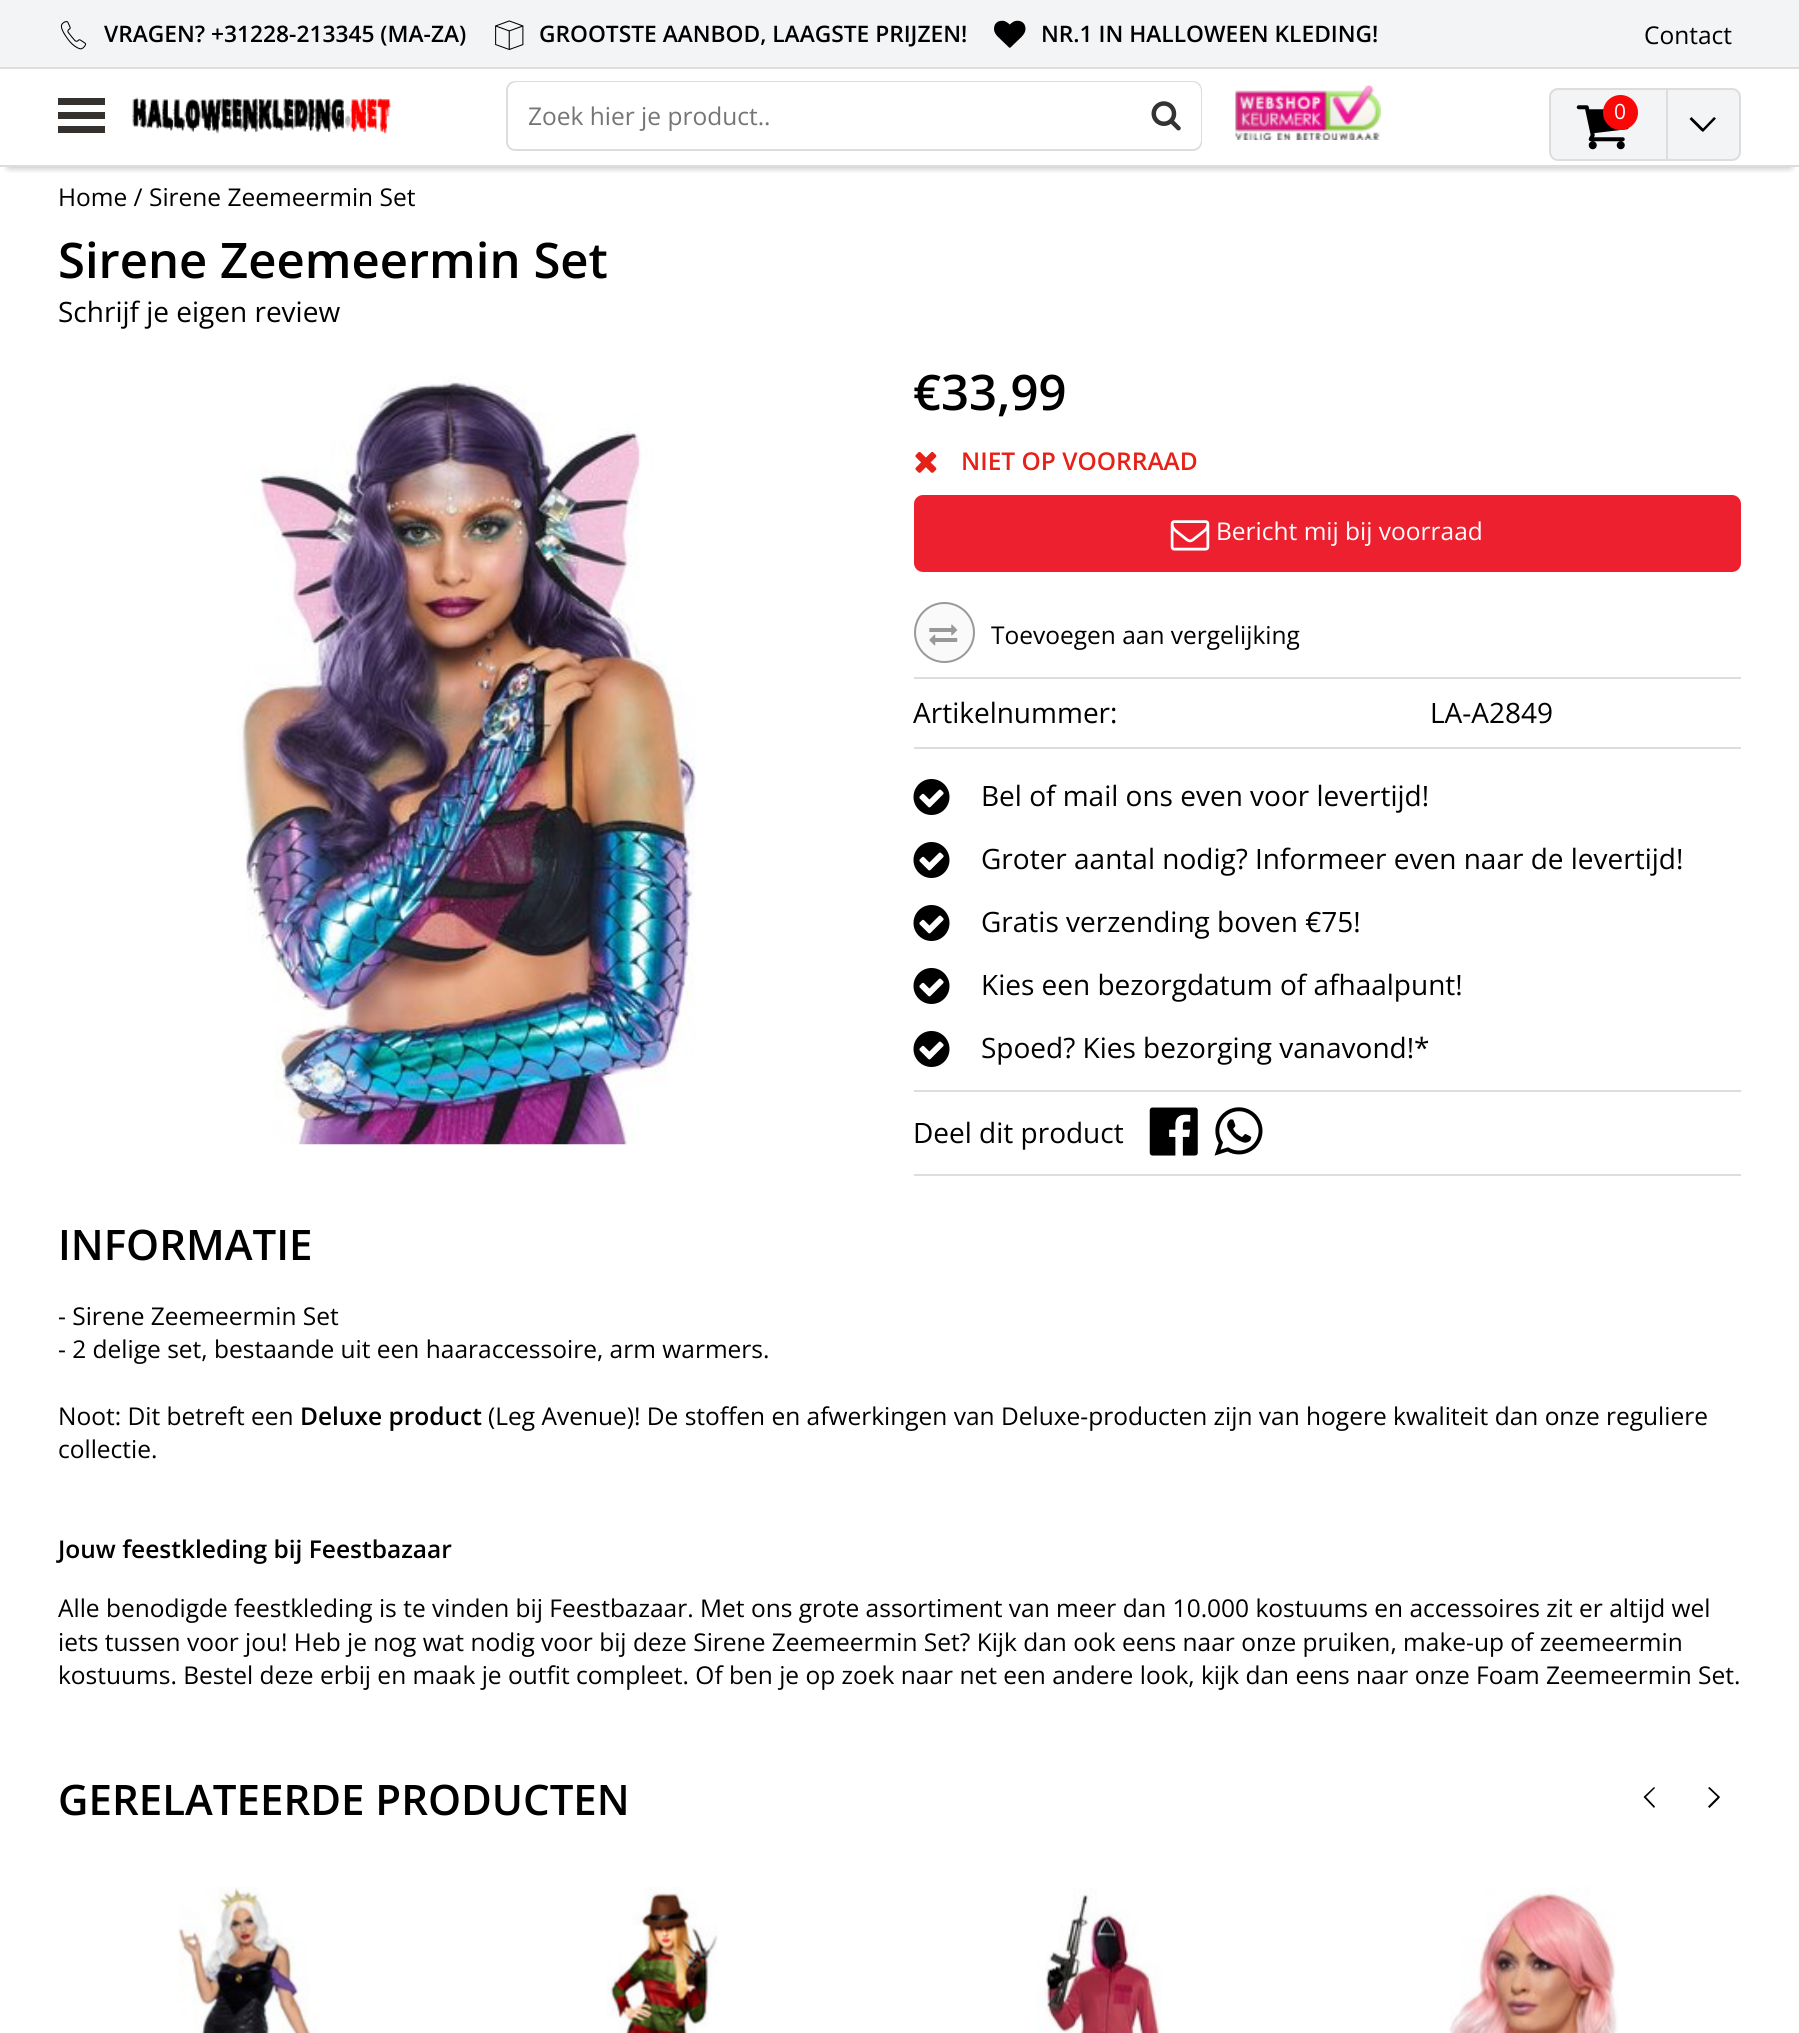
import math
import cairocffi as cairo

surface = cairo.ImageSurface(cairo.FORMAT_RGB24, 1799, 2033)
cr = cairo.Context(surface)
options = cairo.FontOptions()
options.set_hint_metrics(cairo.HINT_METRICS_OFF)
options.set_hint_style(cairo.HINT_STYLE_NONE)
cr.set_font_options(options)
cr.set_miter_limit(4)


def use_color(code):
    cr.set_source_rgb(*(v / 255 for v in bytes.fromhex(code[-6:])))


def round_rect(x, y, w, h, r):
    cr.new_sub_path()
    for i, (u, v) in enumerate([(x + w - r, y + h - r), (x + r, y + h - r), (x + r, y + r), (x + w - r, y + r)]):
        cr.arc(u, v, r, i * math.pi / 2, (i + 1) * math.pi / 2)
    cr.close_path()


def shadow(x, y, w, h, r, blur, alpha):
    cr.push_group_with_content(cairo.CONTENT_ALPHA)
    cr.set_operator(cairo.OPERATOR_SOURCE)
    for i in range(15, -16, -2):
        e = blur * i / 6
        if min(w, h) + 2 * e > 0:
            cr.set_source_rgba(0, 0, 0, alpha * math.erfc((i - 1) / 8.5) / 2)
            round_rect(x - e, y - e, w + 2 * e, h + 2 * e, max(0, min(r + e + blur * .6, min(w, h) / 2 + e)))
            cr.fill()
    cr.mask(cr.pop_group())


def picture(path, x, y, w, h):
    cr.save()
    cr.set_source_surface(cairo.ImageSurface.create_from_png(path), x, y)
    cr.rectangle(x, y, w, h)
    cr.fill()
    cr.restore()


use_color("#ffffff")
cr.paint()
use_color("#f3f4f6")
cr.rectangle(0, 0, 1799, 67)
cr.fill()
use_color("#dddddd")
cr.rectangle(0, 67, 1799, 2)
cr.fill()
picture("img1.png", 60, 21, 27, 29)
cr.select_font_face("Open Sans SemiBold")
cr.set_font_size(22.75)
use_color("#000000")
cr.move_to(104, 42)
cr.show_text("VRAGEN? +31228-213345 (MA-ZA)")
picture("img2.png", 495, 20, 29, 30)
cr.move_to(539, 42)
cr.show_text("GROOTSTE AANBOD, LAAGSTE PRIJZEN!")
picture("img3.png", 994, 20, 32, 28)
cr.move_to(1041, 42)
cr.show_text("NR.1 IN HALLOWEEN KLEDING!")
cr.select_font_face("Open Sans")
cr.set_font_size(24.5)
cr.move_to(1644, 44)
cr.show_text("Contact")
cr.save()
cr.rectangle(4, 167, 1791, 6)
cr.clip()
use_color("#000000")
shadow(9, 88, 1781, 78, 0, 4.5, 0.4)
cr.restore()
use_color("#dddddd")
cr.rectangle(0, 165, 1799, 2)
cr.fill()
use_color("#34312f")
cr.rectangle(58, 98, 47, 7)
cr.fill()
cr.rectangle(58, 112, 47, 7)
cr.fill()
cr.rectangle(58, 126, 47, 7)
cr.fill()
picture("img4.png", 132, 97, 259, 37)
round_rect(507, 82, 694, 68, 8)
use_color("#dddddd")
cr.stroke()
use_color("#ffffff")
round_rect(508, 82, 693, 67, 9)
cr.fill()
cr.save()
cr.rectangle(529, 100, 598, 33)
cr.clip()
use_color("#757575")
cr.move_to(528, 125)
cr.show_text("Zoek hier je product..")
cr.restore()
picture("img5.png", 1151, 101, 30, 30)
picture("img6.png", 1235, 85, 146, 55)
use_color("#f3f4f6")
round_rect(1550, 89, 190, 71, 8)
cr.fill_preserve()
use_color("#dddddd")
cr.stroke()
picture("img7.png", 1576, 105, 53, 45)
use_color("#fa0808")
cr.arc(1620.5, 112.5, 17.5, 0, 2 * math.pi)
cr.fill()
cr.set_font_size(21)
use_color("#ffffff")
cr.move_to(1614, 119)
cr.show_text("0")
use_color("#dddddd")
cr.new_path()
cr.move_to(1666, 161)
cr.line_to(1666, 89)
cr.line_to(1668, 89)
cr.line_to(1668, 159)
cr.close_path()
cr.fill()
use_color("#000000")
cr.new_path()
cr.move_to(1701, 130.5)
cr.line_to(1703, 132)
cr.line_to(1716, 118.5)
cr.line_to(1714, 117)
cr.line_to(1703, 128.5)
cr.line_to(1691.5, 117)
cr.line_to(1689.5, 119)
cr.close_path()
cr.fill()
cr.set_font_size(24.5)
cr.move_to(58, 206)
cr.show_text("Home / Sirene Zeemeermin Set")
cr.select_font_face("Open Sans SemiBold")
cr.set_font_size(49)
cr.move_to(58, 278)
cr.show_text("Sirene Zeemeermin Set")
cr.select_font_face("Open Sans")
cr.set_font_size(28)
cr.move_to(58, 322)
cr.show_text("Schrijf je eigen review")
picture("img8.png", 238, 375, 458, 770)
cr.select_font_face("Open Sans SemiBold")
cr.set_font_size(49)
cr.move_to(913, 410)
cr.show_text("€33,99")
picture("img9.png", 915, 451, 22, 22)
cr.set_font_size(24.5)
use_color("#e62117")
cr.move_to(961, 470)
cr.show_text("NIET OP VOORRAAD")
use_color("#ec202f")
round_rect(914, 495, 827, 77, 9)
cr.fill()
picture("img10.png", 1170, 520, 40, 31)
cr.select_font_face("Open Sans")
use_color("#ffffff")
cr.move_to(1216, 540)
cr.show_text("Bericht mij bij voorraad")
use_color("#dddddd")
cr.rectangle(914, 677, 827, 2)
cr.fill()
use_color("#fafafa")
cr.arc(944.5, 632.5, 29.5, 0, 2 * math.pi)
cr.fill_preserve()
use_color("#999999")
cr.stroke()
picture("img11.png", 929, 624, 29, 22)
use_color("#000000")
cr.move_to(991, 644)
cr.show_text("Toevoegen aan vergelijking")
use_color("#dddddd")
cr.rectangle(914, 747, 827, 2)
cr.fill()
cr.set_font_size(28)
use_color("#000000")
cr.move_to(913, 723)
cr.show_text("Artikelnummer:")
cr.move_to(1430, 723)
cr.show_text("LA-A2849")
use_color("#dddddd")
cr.rectangle(914, 1090, 827, 2)
cr.fill()
picture("img12.png", 913, 779, 37, 36)
use_color("#000000")
cr.move_to(981, 806)
cr.show_text("Bel of mail ons even voor levertijd!")
picture("img12.png", 913, 842, 37, 36)
cr.move_to(981, 869)
cr.show_text("Groter aantal nodig? Informeer even naar de levertijd!")
picture("img12.png", 913, 905, 37, 36)
cr.move_to(981, 932)
cr.show_text("Gratis verzending boven €75!")
picture("img12.png", 913, 968, 37, 36)
cr.move_to(981, 995)
cr.show_text("Kies een bezorgdatum of afhaalpunt!")
picture("img12.png", 913, 1031, 37, 36)
cr.move_to(981, 1058)
cr.show_text("Spoed? Kies bezorging vanavond!*")
use_color("#dddddd")
cr.rectangle(914, 1174, 827, 2)
cr.fill()
use_color("#000000")
cr.move_to(913, 1143)
cr.show_text("Deel dit product")
picture("img13.png", 1149, 1107, 49, 49)
picture("img14.png", 1214, 1107, 49, 49)
cr.select_font_face("Open Sans SemiBold")
cr.set_font_size(42)
cr.move_to(58, 1260)
cr.show_text("INFORMATIE")
cr.select_font_face("Open Sans")
cr.set_font_size(24.5)
cr.move_to(58, 1325)
cr.show_text("- Sirene Zeemeermin Set")
cr.move_to(58, 1358)
cr.show_text("- 2 delige set, bestaande uit een haaraccessoire, arm warmers.")
cr.move_to(58, 1425)
cr.show_text("Noot: Dit betreft een")
cr.select_font_face("Open Sans SemiBold")
cr.move_to(300, 1425)
cr.show_text("Deluxe product")
cr.select_font_face("Open Sans")
cr.move_to(488, 1425)
cr.show_text("(Leg Avenue)! De stoffen en afwerkingen van Deluxe-producten zijn van hogere kwaliteit dan onze reguliere")
cr.move_to(58, 1458)
cr.show_text("collectie.")
cr.select_font_face("Open Sans SemiBold")
cr.move_to(58, 1558)
cr.show_text("Jouw feestkleding bij Feestbazaar")
cr.select_font_face("Open Sans")
cr.move_to(58, 1617)
cr.show_text("Alle benodigde feestkleding is te vinden bij Feestbazaar. Met ons grote assortiment van meer dan 10.000 kostuums en accessoires zit er altijd wel")
cr.move_to(58, 1651)
cr.show_text("iets tussen voor jou! Heb je nog wat nodig voor bij deze Sirene Zeemeermin Set? Kijk dan ook eens naar onze pruiken, make-up of zeemeermin")
cr.move_to(58, 1684)
cr.show_text("kostuums. Bestel deze erbij en maak je outfit compleet. Of ben je op zoek naar net een andere look, kijk dan eens naar onze Foam Zeemeermin Set.")
cr.select_font_face("Open Sans SemiBold")
cr.set_font_size(42)
cr.move_to(58, 1815)
cr.show_text("GERELATEERDE PRODUCTEN")
cr.new_path()
cr.move_to(1644.5, 1796)
cr.line_to(1643.5, 1797)
cr.line_to(1654, 1808)
cr.line_to(1655, 1806.5)
cr.line_to(1646, 1797)
cr.line_to(1655, 1788)
cr.line_to(1654, 1787)
cr.close_path()
cr.fill()
cr.new_path()
cr.move_to(1719, 1798.5)
cr.line_to(1720, 1797)
cr.line_to(1709.5, 1787)
cr.line_to(1708, 1788)
cr.line_to(1717.5, 1797)
cr.line_to(1708, 1806.5)
cr.line_to(1709.5, 1808)
cr.close_path()
cr.fill()
picture("img15.png", 178, 1887, 141, 146)
picture("img16.png", 606, 1887, 112, 146)
picture("img17.png", 1036, 1888, 126, 145)
picture("img18.png", 1449, 1887, 169, 146)
surface.write_to_png("result.png")
